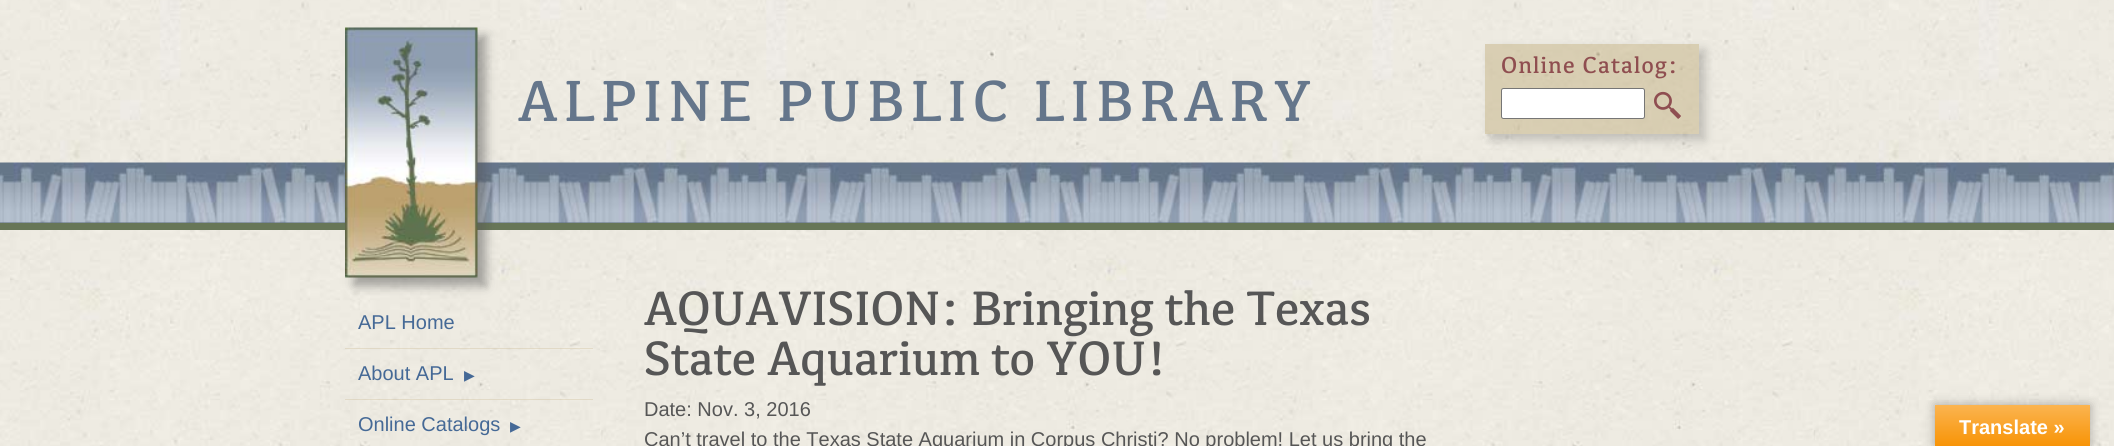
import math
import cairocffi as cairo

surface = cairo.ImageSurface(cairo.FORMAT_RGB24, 2114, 446)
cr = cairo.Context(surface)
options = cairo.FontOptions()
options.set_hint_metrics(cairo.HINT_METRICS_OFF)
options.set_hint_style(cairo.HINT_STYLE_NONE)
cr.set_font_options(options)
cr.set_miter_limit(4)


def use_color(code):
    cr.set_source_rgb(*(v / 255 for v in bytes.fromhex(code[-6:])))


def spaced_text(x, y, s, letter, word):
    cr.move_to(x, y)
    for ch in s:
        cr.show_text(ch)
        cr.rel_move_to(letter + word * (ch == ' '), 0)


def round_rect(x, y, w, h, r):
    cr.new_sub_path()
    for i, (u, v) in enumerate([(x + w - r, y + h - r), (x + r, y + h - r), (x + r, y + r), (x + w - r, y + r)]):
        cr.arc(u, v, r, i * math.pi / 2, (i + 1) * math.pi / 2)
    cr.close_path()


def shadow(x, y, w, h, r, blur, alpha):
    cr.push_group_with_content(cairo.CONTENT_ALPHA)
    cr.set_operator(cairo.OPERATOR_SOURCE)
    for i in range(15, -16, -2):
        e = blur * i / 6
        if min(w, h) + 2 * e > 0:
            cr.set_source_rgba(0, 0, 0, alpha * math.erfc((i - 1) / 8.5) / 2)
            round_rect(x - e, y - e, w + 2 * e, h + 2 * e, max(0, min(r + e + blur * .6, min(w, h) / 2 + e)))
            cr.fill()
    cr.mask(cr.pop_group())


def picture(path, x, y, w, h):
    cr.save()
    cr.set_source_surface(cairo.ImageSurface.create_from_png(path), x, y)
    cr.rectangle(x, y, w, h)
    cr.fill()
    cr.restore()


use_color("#ffffff")
cr.paint()
picture("img1.png", 0, 0, 2114, 446)
use_color("#5d6c7b")
cr.rectangle(0, 222, 2114, 1)
cr.fill()
picture("img4.png", 0, 162, 2114, 61)
use_color("#677657")
cr.rectangle(0, 223, 2114, 7)
cr.fill()
use_color("#565656")
shadow(354, 36, 132, 250, 0, 5, 0.5)
picture("img2.png", 345, 27, 133, 251)
cr.save()
cr.set_fill_rule(cairo.FILL_RULE_EVEN_ODD)
cr.new_path()
cr.move_to(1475, 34)
cr.line_to(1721, 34)
cr.line_to(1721, 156)
cr.line_to(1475, 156)
cr.close_path()
cr.move_to(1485, 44)
cr.line_to(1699, 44)
cr.line_to(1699, 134)
cr.line_to(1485, 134)
cr.close_path()
cr.clip()
shadow(1491, 50, 214, 90, 0, 5, 0.3)
cr.restore()
cr.set_source_rgba(0.773, 0.702, 0.522, 0.5)
cr.rectangle(1485, 44, 214, 90)
cr.fill()
cr.select_font_face("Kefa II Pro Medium")
cr.set_font_size(24)
use_color("#8f4e50")
spaced_text(1501, 73, "Online Catalog:", 1.25, 0)
use_color("#ffffff")
round_rect(1501.5, 88.5, 143, 30, 2)
cr.fill_preserve()
use_color("#767676")
cr.set_line_width(1)
cr.stroke()
picture("img3.png", 1654, 91, 27, 28)
cr.set_font_size(60)
use_color("#65768b")
spaced_text(518, 121, "ALPINE PUBLIC LIBRARY", 6, 0)
cr.set_source_rgba(0.773, 0.702, 0.522, 0.3)
cr.rectangle(345, 348, 248, 1)
cr.fill()
cr.select_font_face("Liberation Sans")
cr.set_font_size(20)
use_color("#456996")
cr.move_to(358, 329)
cr.show_text("APL Home")
cr.set_source_rgba(0.773, 0.702, 0.522, 0.3)
cr.rectangle(345, 399, 248, 1)
cr.fill()
use_color("#456996")
cr.move_to(358, 380)
cr.show_text("About APL")
cr.select_font_face("DejaVu Sans")
cr.set_font_size(14)
cr.move_to(464, 380)
cr.show_text("▶")
cr.select_font_face("Liberation Sans")
cr.set_font_size(20)
cr.move_to(358, 431)
cr.show_text("Online Catalogs")
cr.select_font_face("DejaVu Sans")
cr.set_font_size(14)
cr.move_to(510, 431)
cr.show_text("▶")
cr.select_font_face("Kefa II Pro Medium")
cr.set_font_size(50)
use_color("#565656")
cr.move_to(644, 325)
cr.show_text("AQUAVISION: Bringing the Texas")
cr.move_to(644, 375)
cr.show_text("State Aquarium to YOU!")
cr.select_font_face("Liberation Sans")
cr.set_font_size(20)
cr.move_to(644, 416)
cr.show_text("Date: Nov. 3, 2016")
cr.move_to(644, 446)
cr.show_text("Can’t travel to the Texas State Aquarium in Corpus Christi? No problem! Let us bring the")
use_color("#000000")
shadow(1935, 405, 155, 41, 0, 5.5, 0.3)
gradient = cairo.LinearGradient(2013, 405, 2013, 446)
gradient.add_color_stop_rgba(0, 0.984, 0.706, 0.314, 1)
gradient.add_color_stop_rgba(1, 0.973, 0.58, 0.024, 1)
cr.set_source(gradient)
cr.rectangle(1935, 405, 155, 41)
cr.fill()
cr.select_font_face("Liberation Sans", cairo.FONT_SLANT_NORMAL, cairo.FONT_WEIGHT_BOLD)
use_color("#ffffff")
cr.move_to(1959, 434)
cr.show_text("Translate »")
surface.write_to_png("result.png")
